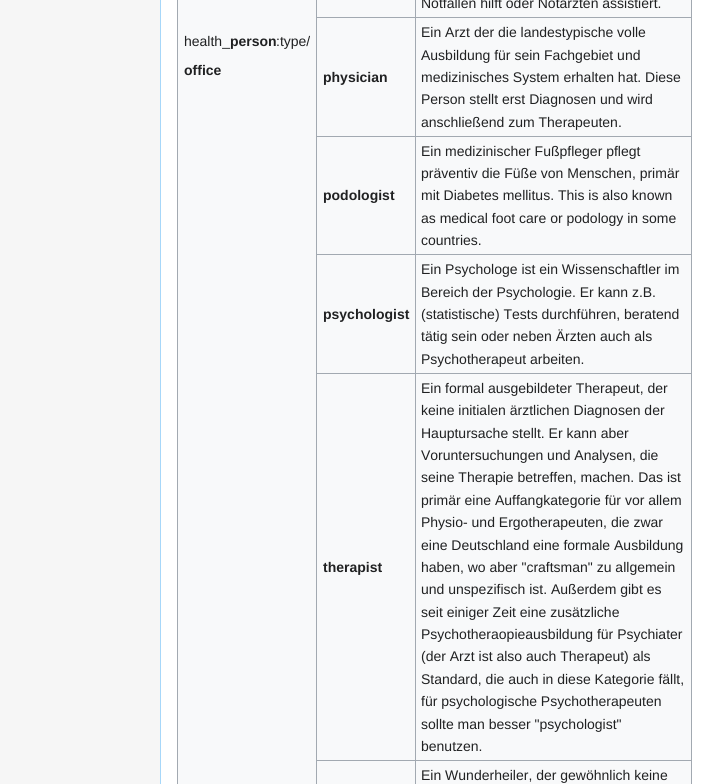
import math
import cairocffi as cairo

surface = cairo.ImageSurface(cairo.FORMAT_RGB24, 708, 784)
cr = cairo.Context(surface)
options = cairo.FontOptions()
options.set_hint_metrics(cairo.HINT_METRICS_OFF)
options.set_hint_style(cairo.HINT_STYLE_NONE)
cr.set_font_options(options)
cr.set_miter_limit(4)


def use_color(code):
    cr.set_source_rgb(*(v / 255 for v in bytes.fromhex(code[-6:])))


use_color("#f6f6f6")
cr.paint()
use_color("#ffffff")
cr.rectangle(161, 0, 547, 784)
cr.fill()
use_color("#a7d7f9")
cr.rectangle(160, 0, 1, 784)
cr.fill()
use_color("#f8f9fa")
cr.rectangle(178, 0, 513, 784)
cr.fill()
use_color("#a2a9b1")
cr.rectangle(691, 0, 1, 784)
cr.fill()
cr.rectangle(177, 0, 1, 784)
cr.fill()
cr.rectangle(415, 17, 277, 1)
cr.fill()
cr.rectangle(415, 136, 277, 1)
cr.fill()
cr.rectangle(415, 254, 277, 1)
cr.fill()
cr.rectangle(415, 373, 277, 1)
cr.fill()
cr.rectangle(415, 760, 277, 1)
cr.fill()
cr.rectangle(415, 760, 1, 24)
cr.fill()
cr.rectangle(316, 760, 100, 1)
cr.fill()
cr.rectangle(415, 373, 1, 388)
cr.fill()
cr.rectangle(316, 373, 100, 1)
cr.fill()
cr.rectangle(415, 254, 1, 120)
cr.fill()
cr.rectangle(316, 254, 100, 1)
cr.fill()
cr.rectangle(415, 136, 1, 119)
cr.fill()
cr.rectangle(316, 136, 100, 1)
cr.fill()
cr.rectangle(415, 17, 1, 120)
cr.fill()
cr.rectangle(316, 17, 100, 1)
cr.fill()
cr.rectangle(415, 0, 1, 18)
cr.fill()
cr.select_font_face("Liberation Sans")
cr.set_font_size(14)
use_color("#202122")
cr.move_to(421, 8)
cr.show_text("Notfällen hilft oder Notärzten assistiert.")
cr.move_to(184, 46)
cr.show_text("health_")
cr.select_font_face("Liberation Sans", cairo.FONT_SLANT_NORMAL, cairo.FONT_WEIGHT_BOLD)
cr.move_to(230, 46)
cr.show_text("person")
cr.select_font_face("Liberation Sans")
cr.move_to(276, 46)
cr.show_text(":type/")
cr.select_font_face("Liberation Sans", cairo.FONT_SLANT_NORMAL, cairo.FONT_WEIGHT_BOLD)
cr.move_to(184, 75)
cr.show_text("office")
use_color("#a2a9b1")
cr.rectangle(316, 760, 1, 24)
cr.fill()
cr.rectangle(316, 373, 1, 388)
cr.fill()
cr.rectangle(316, 254, 1, 120)
cr.fill()
cr.rectangle(316, 136, 1, 119)
cr.fill()
cr.rectangle(316, 0, 1, 137)
cr.fill()
use_color("#202122")
cr.move_to(323, 82)
cr.show_text("physician")
cr.select_font_face("Liberation Sans")
cr.move_to(421, 37)
cr.show_text("Ein Arzt der die landestypische volle")
cr.move_to(421, 60)
cr.show_text("Ausbildung für sein Fachgebiet und")
cr.move_to(421, 82)
cr.show_text("medizinisches System erhalten hat. Diese")
cr.move_to(421, 104)
cr.show_text("Person stellt erst Diagnosen und wird")
cr.move_to(421, 127)
cr.show_text("anschließend zum Therapeuten.")
cr.select_font_face("Liberation Sans", cairo.FONT_SLANT_NORMAL, cairo.FONT_WEIGHT_BOLD)
cr.move_to(323, 200)
cr.show_text("podologist")
cr.select_font_face("Liberation Sans")
cr.move_to(421, 156)
cr.show_text("Ein medizinischer Fußpfleger pflegt")
cr.move_to(421, 178)
cr.show_text("präventiv die Füße von Menschen, primär")
cr.move_to(421, 200)
cr.show_text("mit Diabetes mellitus. This is also known")
cr.move_to(421, 223)
cr.show_text("as medical foot care or podology in some")
cr.move_to(421, 245)
cr.show_text("countries.")
cr.select_font_face("Liberation Sans", cairo.FONT_SLANT_NORMAL, cairo.FONT_WEIGHT_BOLD)
cr.move_to(323, 319)
cr.show_text("psychologist")
cr.select_font_face("Liberation Sans")
cr.move_to(421, 274)
cr.show_text("Ein Psychologe ist ein Wissenschaftler im")
cr.move_to(421, 297)
cr.show_text("Bereich der Psychologie. Er kann z.B.")
cr.move_to(421, 319)
cr.show_text("(statistische) Tests durchführen, beratend")
cr.move_to(421, 341)
cr.show_text("tätig sein oder neben Ärzten auch als")
cr.move_to(421, 364)
cr.show_text("Psychotherapeut arbeiten.")
cr.select_font_face("Liberation Sans", cairo.FONT_SLANT_NORMAL, cairo.FONT_WEIGHT_BOLD)
cr.move_to(323, 572)
cr.show_text("therapist")
cr.select_font_face("Liberation Sans")
cr.move_to(421, 393)
cr.show_text("Ein formal ausgebildeter Therapeut, der")
cr.move_to(421, 415)
cr.show_text("keine initialen ärztlichen Diagnosen der")
cr.move_to(421, 438)
cr.show_text("Hauptursache stellt. Er kann aber")
cr.move_to(421, 460)
cr.show_text("Voruntersuchungen und Analysen, die")
cr.move_to(421, 482)
cr.show_text("seine Therapie betreffen, machen. Das ist")
cr.move_to(421, 505)
cr.show_text("primär eine Auffangkategorie für vor allem")
cr.move_to(421, 527)
cr.show_text("Physio- und Ergotherapeuten, die zwar")
cr.move_to(421, 550)
cr.show_text("eine Deutschland eine formale Ausbildung")
cr.move_to(421, 572)
cr.show_text("haben, wo aber \"craftsman\" zu allgemein")
cr.move_to(421, 594)
cr.show_text("und unspezifisch ist. Außerdem gibt es")
cr.move_to(421, 617)
cr.show_text("seit einiger Zeit eine zusätzliche")
cr.move_to(421, 639)
cr.show_text("Psychotheraopieausbildung für Psychiater")
cr.move_to(421, 661)
cr.show_text("(der Arzt ist also auch Therapeut) als")
cr.move_to(421, 684)
cr.show_text("Standard, die auch in diese Kategorie fällt,")
cr.move_to(421, 706)
cr.show_text("für psychologische Psychotherapeuten")
cr.move_to(421, 729)
cr.show_text("sollte man besser \"psychologist\"")
cr.move_to(421, 751)
cr.show_text("benutzen.")
cr.move_to(421, 780)
cr.show_text("Ein Wunderheiler, der gewöhnlich keine")
surface.write_to_png("result.png")
